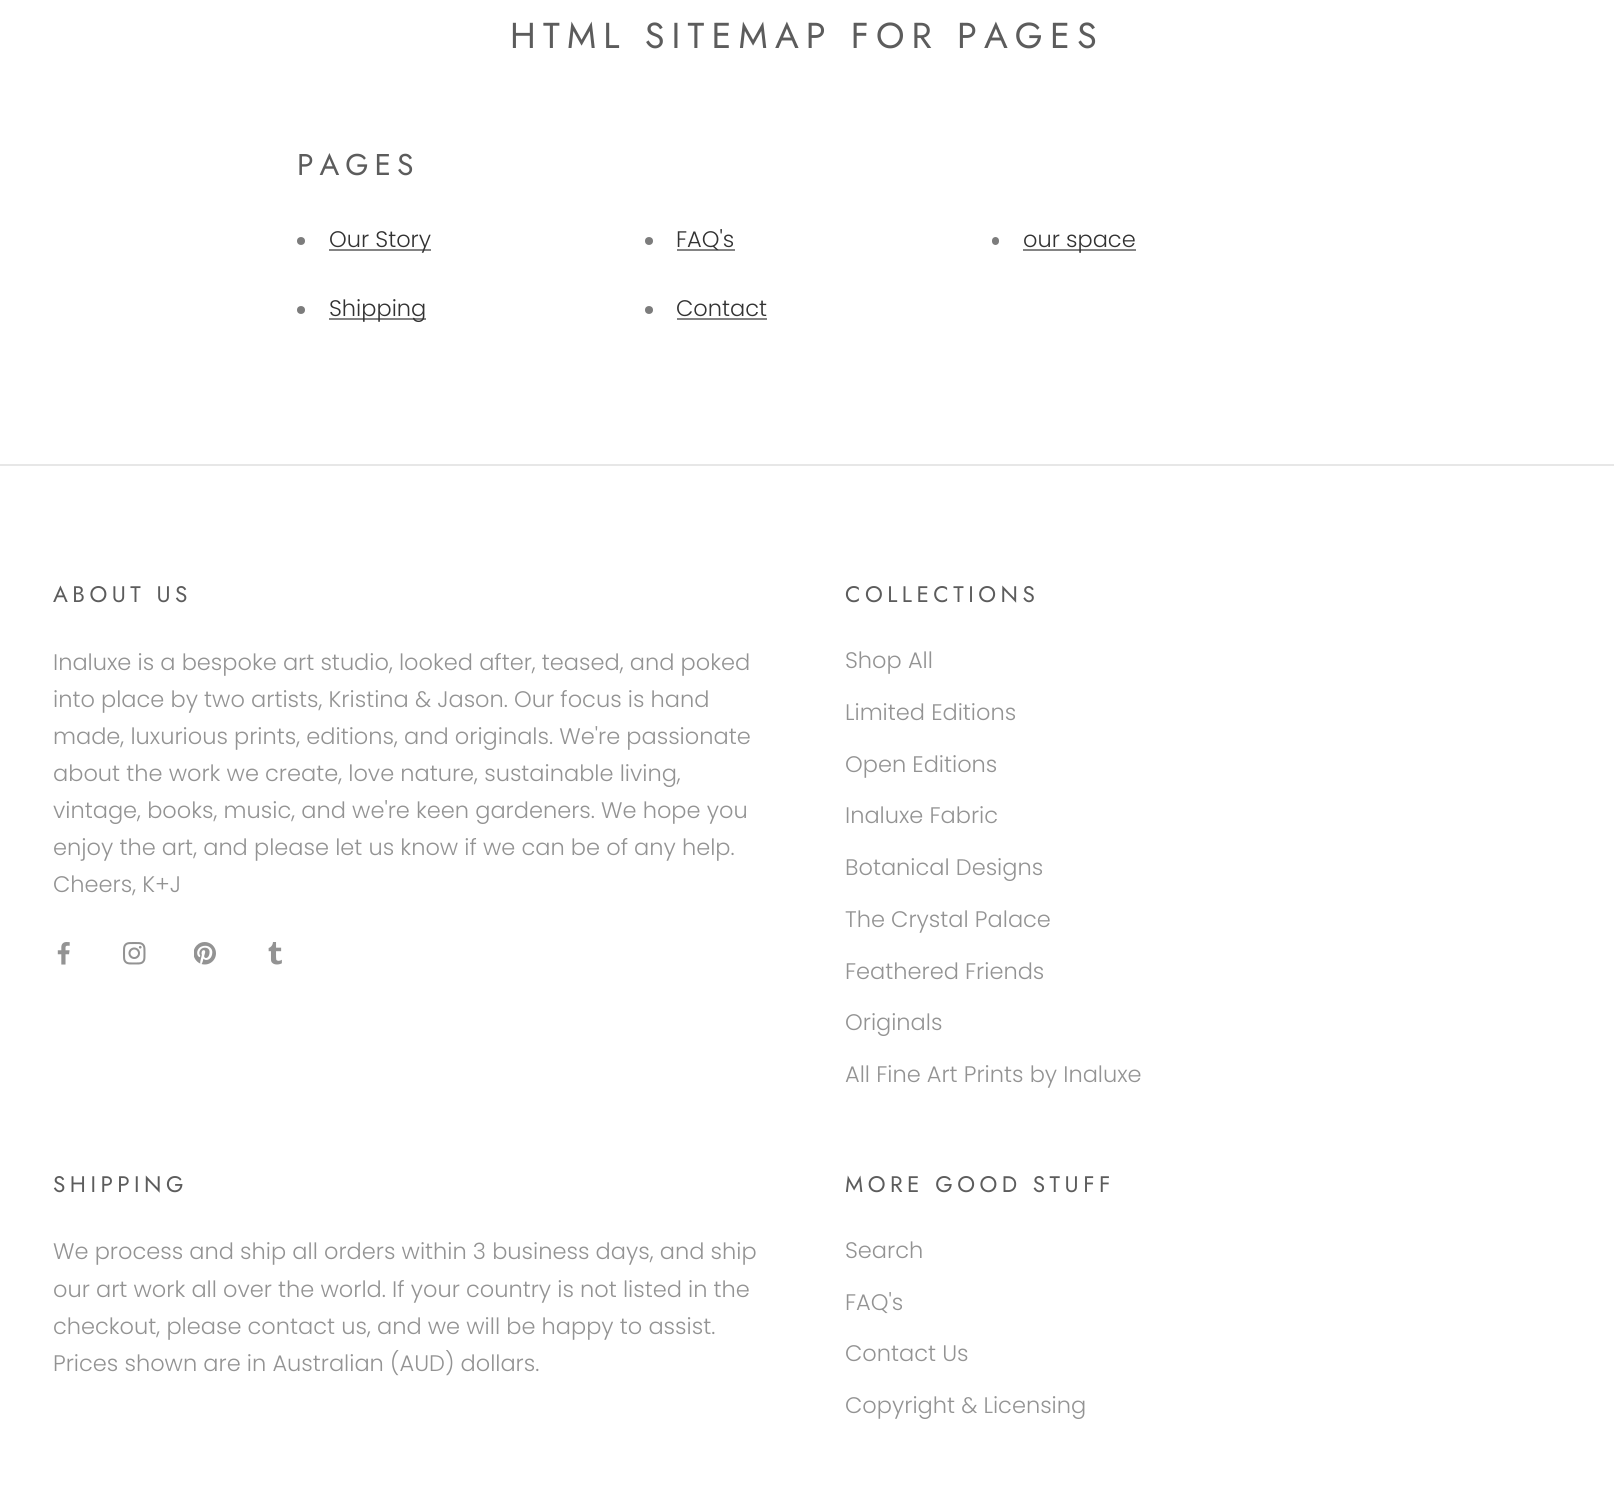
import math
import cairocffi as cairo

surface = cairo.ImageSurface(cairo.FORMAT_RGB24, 1614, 1510)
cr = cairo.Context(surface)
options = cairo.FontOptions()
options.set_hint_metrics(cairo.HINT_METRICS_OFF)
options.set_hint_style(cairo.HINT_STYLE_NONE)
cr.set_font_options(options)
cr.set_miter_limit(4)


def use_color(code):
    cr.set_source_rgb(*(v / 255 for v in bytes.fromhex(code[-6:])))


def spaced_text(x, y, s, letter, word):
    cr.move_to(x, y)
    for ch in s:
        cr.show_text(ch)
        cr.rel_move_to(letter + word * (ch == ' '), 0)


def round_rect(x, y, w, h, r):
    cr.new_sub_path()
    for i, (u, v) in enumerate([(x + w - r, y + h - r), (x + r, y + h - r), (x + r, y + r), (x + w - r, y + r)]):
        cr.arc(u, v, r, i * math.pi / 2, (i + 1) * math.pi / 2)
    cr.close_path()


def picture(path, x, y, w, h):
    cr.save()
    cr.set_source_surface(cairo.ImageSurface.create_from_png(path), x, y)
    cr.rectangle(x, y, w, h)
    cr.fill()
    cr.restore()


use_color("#ffffff")
cr.paint()
cr.select_font_face("Jost")
cr.set_font_size(36)
use_color("#5c5c5c")
spaced_text(510, 48, "HTML SITEMAP FOR PAGES", 7.2, 0)
cr.set_font_size(30)
spaced_text(297, 175, "PAGES", 6, 0)
use_color("#7c7c7c")
cr.new_path()
cr.arc(301, 241, 4, 0, 2 * math.pi)
cr.fill()
use_color("#848484")
cr.rectangle(329, 249, 102, 2)
cr.fill()
cr.select_font_face("Poppins Light")
cr.set_font_size(22.5)
use_color("#323232")
cr.move_to(329, 247)
cr.show_text("Our Story")
use_color("#7c7c7c")
cr.new_path()
cr.arc(649, 241, 4, 0, 2 * math.pi)
cr.fill()
use_color("#848484")
cr.rectangle(677, 249, 58, 2)
cr.fill()
use_color("#323232")
cr.move_to(676, 247)
cr.show_text("FAQ's")
use_color("#7c7c7c")
round_rect(992, 237, 7, 8, 3.5)
cr.fill()
use_color("#848484")
cr.rectangle(1023, 249, 113, 2)
cr.fill()
use_color("#323232")
cr.move_to(1023, 247)
cr.show_text("our space")
use_color("#7c7c7c")
cr.new_path()
cr.arc(301, 310, 4, 0, 2 * math.pi)
cr.fill()
use_color("#848484")
cr.rectangle(329, 318, 97, 2)
cr.fill()
use_color("#323232")
cr.move_to(329, 316)
cr.show_text("Shipping")
use_color("#7c7c7c")
cr.new_path()
cr.arc(649, 310, 4, 0, 2 * math.pi)
cr.fill()
use_color("#323232")
cr.move_to(676, 316)
cr.show_text("Contact")
use_color("#848484")
cr.rectangle(677, 318, 90, 2)
cr.fill()
use_color("#e7e7e7")
cr.rectangle(0, 464, 1614, 2)
cr.fill()
cr.select_font_face("Jost")
use_color("#5c5c5c")
spaced_text(53, 602, "ABOUT US", 4.5, 0)
cr.select_font_face("Poppins Light")
use_color("#939393")
cr.move_to(53, 670)
cr.show_text("Inaluxe is a bespoke art studio, looked after, teased, and poked")
cr.move_to(53, 707)
cr.show_text("into place by two artists, Kristina & Jason. Our focus is hand")
cr.move_to(53, 744)
cr.show_text("made, luxurious prints, editions, and originals. We're passionate")
cr.move_to(53, 781)
cr.show_text("about the work we create, love nature, sustainable living,")
cr.move_to(53, 818)
cr.show_text("vintage, books, music, and we're keen gardeners. We hope you")
cr.move_to(53, 855)
cr.show_text("enjoy the art, and please let us know if we can be of any help.")
cr.move_to(53, 892)
cr.show_text("Cheers, K+J")
picture("img1.png", 57, 942, 13, 23)
picture("img2.png", 123, 942, 23, 23)
picture("img3.png", 194, 942, 22, 23)
picture("img4.png", 268, 942, 14, 23)
cr.select_font_face("Jost")
use_color("#5c5c5c")
spaced_text(845, 602, "COLLECTIONS", 4.5, 0)
cr.select_font_face("Poppins Light")
use_color("#939393")
cr.move_to(845, 668)
cr.show_text("Shop All")
cr.move_to(845, 720)
cr.show_text("Limited Editions")
cr.move_to(845, 772)
cr.show_text("Open Editions")
cr.move_to(845, 823)
cr.show_text("Inaluxe Fabric")
cr.move_to(845, 875)
cr.show_text("Botanical Designs")
cr.move_to(845, 927)
cr.show_text("The Crystal Palace")
cr.move_to(845, 979)
cr.show_text("Feathered Friends")
cr.move_to(845, 1030)
cr.show_text("Originals")
cr.move_to(845, 1082)
cr.show_text("All Fine Art Prints by Inaluxe")
cr.select_font_face("Jost")
use_color("#5c5c5c")
spaced_text(53, 1192, "SHIPPING", 4.5, 0)
cr.select_font_face("Poppins Light")
use_color("#939393")
cr.move_to(53, 1259)
cr.show_text("We process and ship all orders within 3 business days, and ship")
cr.move_to(53, 1297)
cr.show_text("our art work all over the world. If your country is not listed in the")
cr.move_to(53, 1334)
cr.show_text("checkout, please contact us, and we will be happy to assist.")
cr.move_to(53, 1371)
cr.show_text("Prices shown are in Australian (AUD) dollars.")
cr.select_font_face("Jost")
use_color("#5c5c5c")
spaced_text(845, 1192, "MORE GOOD STUFF", 4.5, 0)
cr.select_font_face("Poppins Light")
use_color("#939393")
cr.move_to(845, 1258)
cr.show_text("Search")
cr.move_to(845, 1310)
cr.show_text("FAQ's")
cr.move_to(845, 1361)
cr.show_text("Contact Us")
cr.move_to(845, 1413)
cr.show_text("Copyright & Licensing")
surface.write_to_png("result.png")
